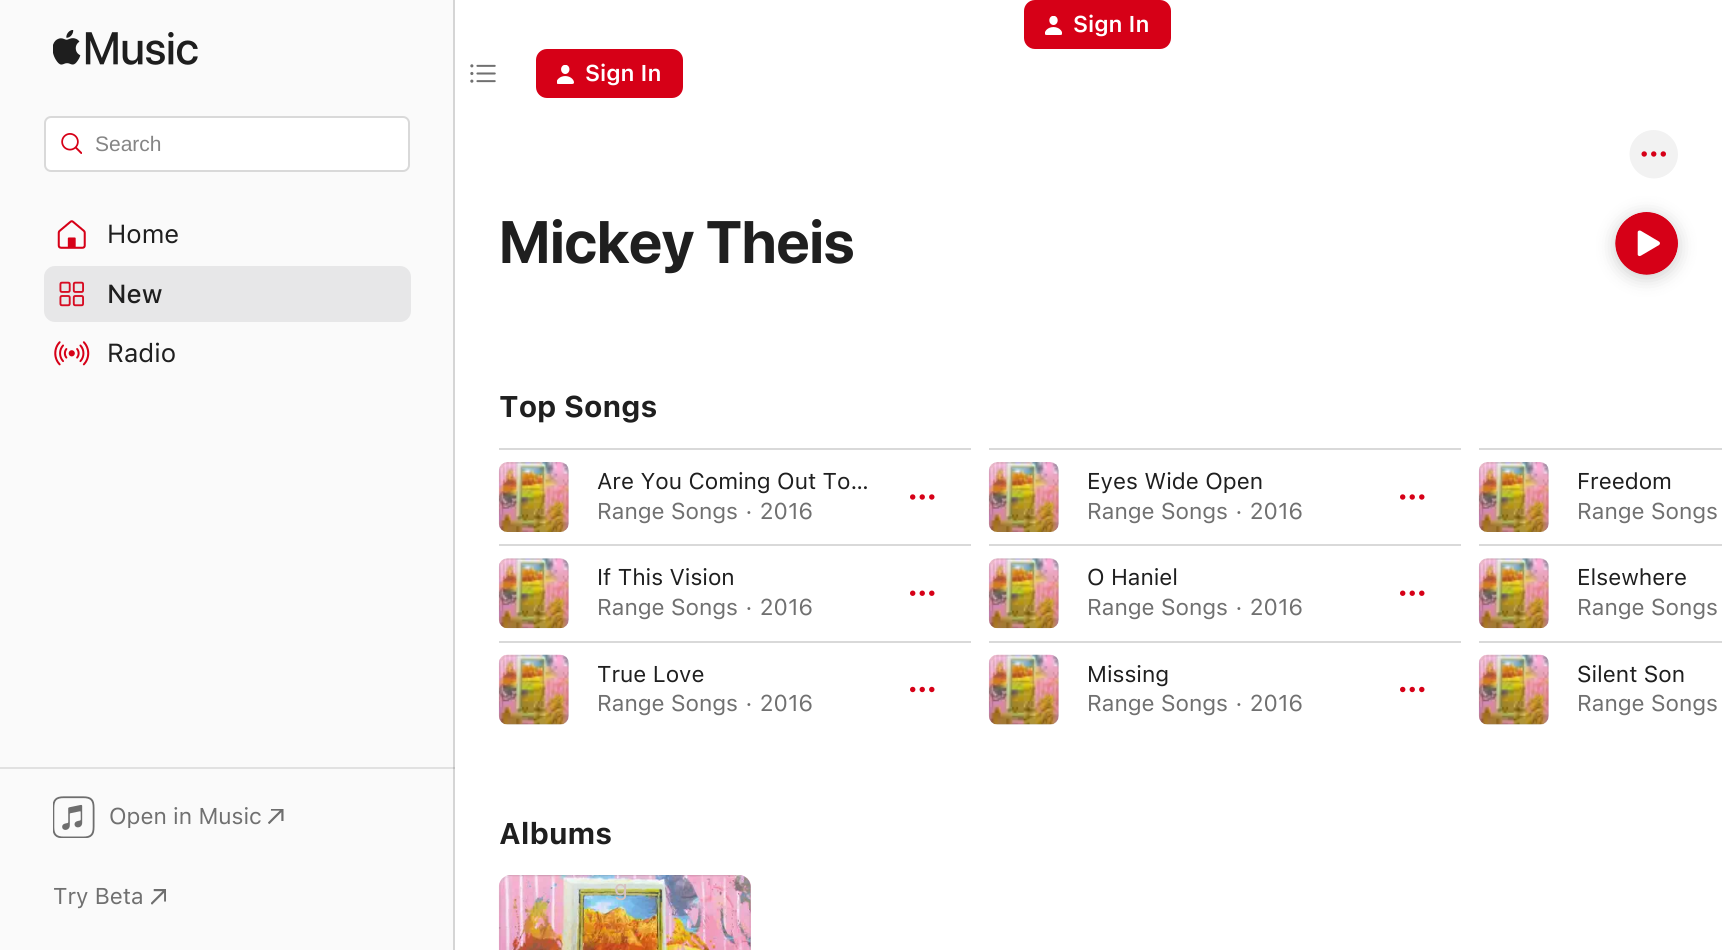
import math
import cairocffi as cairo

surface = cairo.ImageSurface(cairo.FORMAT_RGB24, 1722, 950)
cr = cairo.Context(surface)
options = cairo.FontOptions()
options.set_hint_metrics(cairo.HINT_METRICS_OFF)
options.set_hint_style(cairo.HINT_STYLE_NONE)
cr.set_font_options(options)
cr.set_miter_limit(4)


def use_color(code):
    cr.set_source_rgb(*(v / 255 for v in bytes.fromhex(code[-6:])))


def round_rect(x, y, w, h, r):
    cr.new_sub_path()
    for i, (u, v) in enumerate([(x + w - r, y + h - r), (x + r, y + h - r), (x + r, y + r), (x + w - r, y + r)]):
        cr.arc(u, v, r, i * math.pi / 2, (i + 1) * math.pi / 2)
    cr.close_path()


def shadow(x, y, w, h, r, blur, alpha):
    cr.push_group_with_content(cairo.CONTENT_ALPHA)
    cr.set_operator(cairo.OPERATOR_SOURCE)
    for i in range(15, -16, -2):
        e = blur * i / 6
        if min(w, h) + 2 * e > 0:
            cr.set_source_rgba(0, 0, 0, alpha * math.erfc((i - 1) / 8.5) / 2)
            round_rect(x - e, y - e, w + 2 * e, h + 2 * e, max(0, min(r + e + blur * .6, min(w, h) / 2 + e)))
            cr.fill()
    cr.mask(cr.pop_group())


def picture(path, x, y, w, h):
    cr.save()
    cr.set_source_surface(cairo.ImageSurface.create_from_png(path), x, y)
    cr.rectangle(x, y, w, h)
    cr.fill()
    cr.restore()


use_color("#ffffff")
cr.paint()
use_color("#d60017")
round_rect(1024, 0, 147, 49, 11)
cr.fill()
picture("img1.png", 1045, 16, 17, 19)
cr.select_font_face("SF SemiBold")
cr.set_font_size(22.75)
use_color("#ffffff")
cr.move_to(1073, 32)
cr.show_text("Sign In")
picture("img2.png", 470, 64, 26, 19)
use_color("#d60017")
round_rect(536, 49, 147, 49, 11)
cr.fill()
picture("img3.png", 557, 65, 17, 19)
use_color("#ffffff")
cr.move_to(585, 81)
cr.show_text("Sign In")
use_color("#fafafa")
cr.rectangle(0, 0, 453, 950)
cr.fill()
use_color("#e1e1e1")
cr.rectangle(0, 767, 455, 2)
cr.fill()
use_color("#d5d5d5")
cr.rectangle(453, 0, 2, 950)
cr.fill()
use_color("#c0c0c0")
cr.rectangle(453, 767, 2, 2)
cr.fill()
picture("img4.png", 53, 30, 145, 35)
use_color("#ffffff")
round_rect(45, 117, 364, 54, 6)
cr.fill_preserve()
use_color("#d9d9d9")
cr.stroke()
picture("img5.png", 61, 133, 21, 21)
cr.select_font_face("Liberation Sans")
cr.set_font_size(21)
use_color("#858585")
cr.move_to(95, 151)
cr.show_text("Search")
picture("img6.png", 57, 220, 29, 29)
cr.select_font_face("SF")
cr.set_font_size(26)
use_color("#1f1f1f")
cr.move_to(107, 243)
cr.show_text("Home")
use_color("#e7e7e8")
round_rect(44, 266, 367, 56, 11)
cr.fill()
picture("img7.png", 59, 281, 25, 26)
cr.select_font_face("SF Medium")
use_color("#1f1f1f")
cr.move_to(107, 303)
cr.show_text("New")
picture("img8.png", 54, 341, 36, 25)
cr.select_font_face("SF")
cr.move_to(107, 362)
cr.show_text("Radio")
picture("img9.png", 53, 796, 42, 42)
cr.set_font_size(22.75)
use_color("#707070")
cr.move_to(109, 824)
cr.show_text("Open in Music")
picture("img10.png", 268, 809, 16, 15)
cr.move_to(53, 904)
cr.show_text("Try Beta")
picture("img11.png", 151, 889, 15, 16)
picture("img12.png", 1629, 130, 49, 49)
cr.select_font_face("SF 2", cairo.FONT_SLANT_NORMAL, cairo.FONT_WEIGHT_BOLD)
cr.set_font_size(59.5)
use_color("#1f1f1f")
cr.move_to(499, 263)
cr.show_text("Mickey Theis")
use_color("#000000")
shadow(1615, 215, 63, 63, 31.5, 9, 0.2)
picture("img13.png", 1615, 212, 63, 63)
cr.select_font_face("SF", cairo.FONT_SLANT_NORMAL, cairo.FONT_WEIGHT_BOLD)
cr.set_font_size(29.75)
use_color("#1f1f1f")
cr.move_to(499, 417)
cr.show_text("Top Songs")
use_color("#d9d9d9")
cr.rectangle(499, 448, 472, 2)
cr.fill()
picture("img14.png", 498, 462, 71, 70)
round_rect(500, 463, 68, 68, 8)
cr.set_source_rgba(0.502, 0.502, 0.502, 0.1)
cr.stroke()
cr.select_font_face("SF")
cr.set_font_size(22.75)
use_color("#1f1f1f")
cr.move_to(597, 489)
cr.show_text("Are You Coming Out To…")
use_color("#707070")
cr.move_to(597, 519)
cr.show_text("Range Songs · 2016")
picture("img15.png", 910, 494, 25, 6)
use_color("#d9d9d9")
cr.rectangle(989, 448, 472, 2)
cr.fill()
picture("img16.png", 988, 462, 71, 70)
round_rect(990, 463, 68, 68, 8)
cr.set_source_rgba(0.502, 0.502, 0.502, 0.1)
cr.stroke()
use_color("#1f1f1f")
cr.move_to(1087, 489)
cr.show_text("Eyes Wide Open")
use_color("#707070")
cr.move_to(1087, 519)
cr.show_text("Range Songs · 2016")
picture("img15.png", 1400, 494, 25, 6)
use_color("#d9d9d9")
cr.rectangle(1479, 448, 243, 2)
cr.fill()
picture("img17.png", 1478, 462, 71, 70)
round_rect(1480, 463, 68, 68, 8)
cr.set_source_rgba(0.502, 0.502, 0.502, 0.1)
cr.stroke()
use_color("#1f1f1f")
cr.move_to(1577, 489)
cr.show_text("Freedom")
use_color("#707070")
cr.move_to(1577, 519)
cr.show_text("Range Songs")
use_color("#d9d9d9")
cr.rectangle(499, 544, 472, 2)
cr.fill()
picture("img18.png", 498, 558, 71, 71)
round_rect(500, 559, 68, 68, 8)
cr.set_source_rgba(0.502, 0.502, 0.502, 0.1)
cr.stroke()
use_color("#1f1f1f")
cr.move_to(597, 585)
cr.show_text("If This Vision")
use_color("#707070")
cr.move_to(597, 615)
cr.show_text("Range Songs · 2016")
picture("img19.png", 910, 590, 25, 6)
use_color("#d9d9d9")
cr.rectangle(989, 544, 472, 2)
cr.fill()
picture("img18.png", 988, 558, 71, 71)
round_rect(990, 559, 68, 68, 8)
cr.set_source_rgba(0.502, 0.502, 0.502, 0.1)
cr.stroke()
use_color("#1f1f1f")
cr.move_to(1087, 585)
cr.show_text("O Haniel")
use_color("#707070")
cr.move_to(1087, 615)
cr.show_text("Range Songs · 2016")
picture("img19.png", 1400, 590, 25, 6)
use_color("#d9d9d9")
cr.rectangle(1479, 544, 243, 2)
cr.fill()
picture("img20.png", 1478, 558, 71, 71)
round_rect(1480, 559, 68, 68, 8)
cr.set_source_rgba(0.502, 0.502, 0.502, 0.1)
cr.stroke()
use_color("#1f1f1f")
cr.move_to(1577, 585)
cr.show_text("Elsewhere")
use_color("#707070")
cr.move_to(1577, 615)
cr.show_text("Range Songs")
use_color("#d9d9d9")
cr.rectangle(499, 641, 472, 2)
cr.fill()
picture("img21.png", 498, 654, 71, 71)
round_rect(500, 656, 68, 68, 8)
cr.set_source_rgba(0.502, 0.502, 0.502, 0.1)
cr.stroke()
use_color("#1f1f1f")
cr.move_to(597, 682)
cr.show_text("True Love")
use_color("#707070")
cr.move_to(597, 711)
cr.show_text("Range Songs · 2016")
picture("img22.png", 910, 686, 25, 7)
use_color("#d9d9d9")
cr.rectangle(989, 641, 472, 2)
cr.fill()
picture("img21.png", 988, 654, 71, 71)
round_rect(990, 656, 68, 68, 8)
cr.set_source_rgba(0.502, 0.502, 0.502, 0.1)
cr.stroke()
use_color("#1f1f1f")
cr.move_to(1087, 682)
cr.show_text("Missing")
use_color("#707070")
cr.move_to(1087, 711)
cr.show_text("Range Songs · 2016")
picture("img22.png", 1400, 686, 25, 7)
use_color("#d9d9d9")
cr.rectangle(1479, 641, 243, 2)
cr.fill()
picture("img23.png", 1478, 654, 71, 71)
round_rect(1480, 656, 68, 68, 8)
cr.set_source_rgba(0.502, 0.502, 0.502, 0.1)
cr.stroke()
use_color("#1f1f1f")
cr.move_to(1577, 682)
cr.show_text("Silent Son")
use_color("#707070")
cr.move_to(1577, 711)
cr.show_text("Range Songs")
cr.select_font_face("SF", cairo.FONT_SLANT_NORMAL, cairo.FONT_WEIGHT_BOLD)
cr.set_font_size(29.75)
use_color("#1f1f1f")
cr.move_to(499, 844)
cr.show_text("Albums")
use_color("#f5aaca")
cr.new_path()
cr.move_to(511, 875)
cr.line_to(739, 875)
cr.curve_to(745.5, 875, 751, 880.5, 751, 887)
cr.line_to(751, 950)
cr.line_to(499, 950)
cr.line_to(499, 887)
cr.curve_to(499, 880.5, 504.5, 875, 511, 875)
cr.close_path()
cr.fill()
picture("img24.png", 498, 875, 253, 75)
round_rect(500, 876, 250, 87, 11)
cr.set_source_rgba(0.502, 0.502, 0.502, 0.1)
cr.stroke()
cr.select_font_face("SF")
cr.set_font_size(22.75)
use_color("#d6c2c0")
cr.move_to(614, 896)
cr.show_text("g")
surface.write_to_png("result.png")
